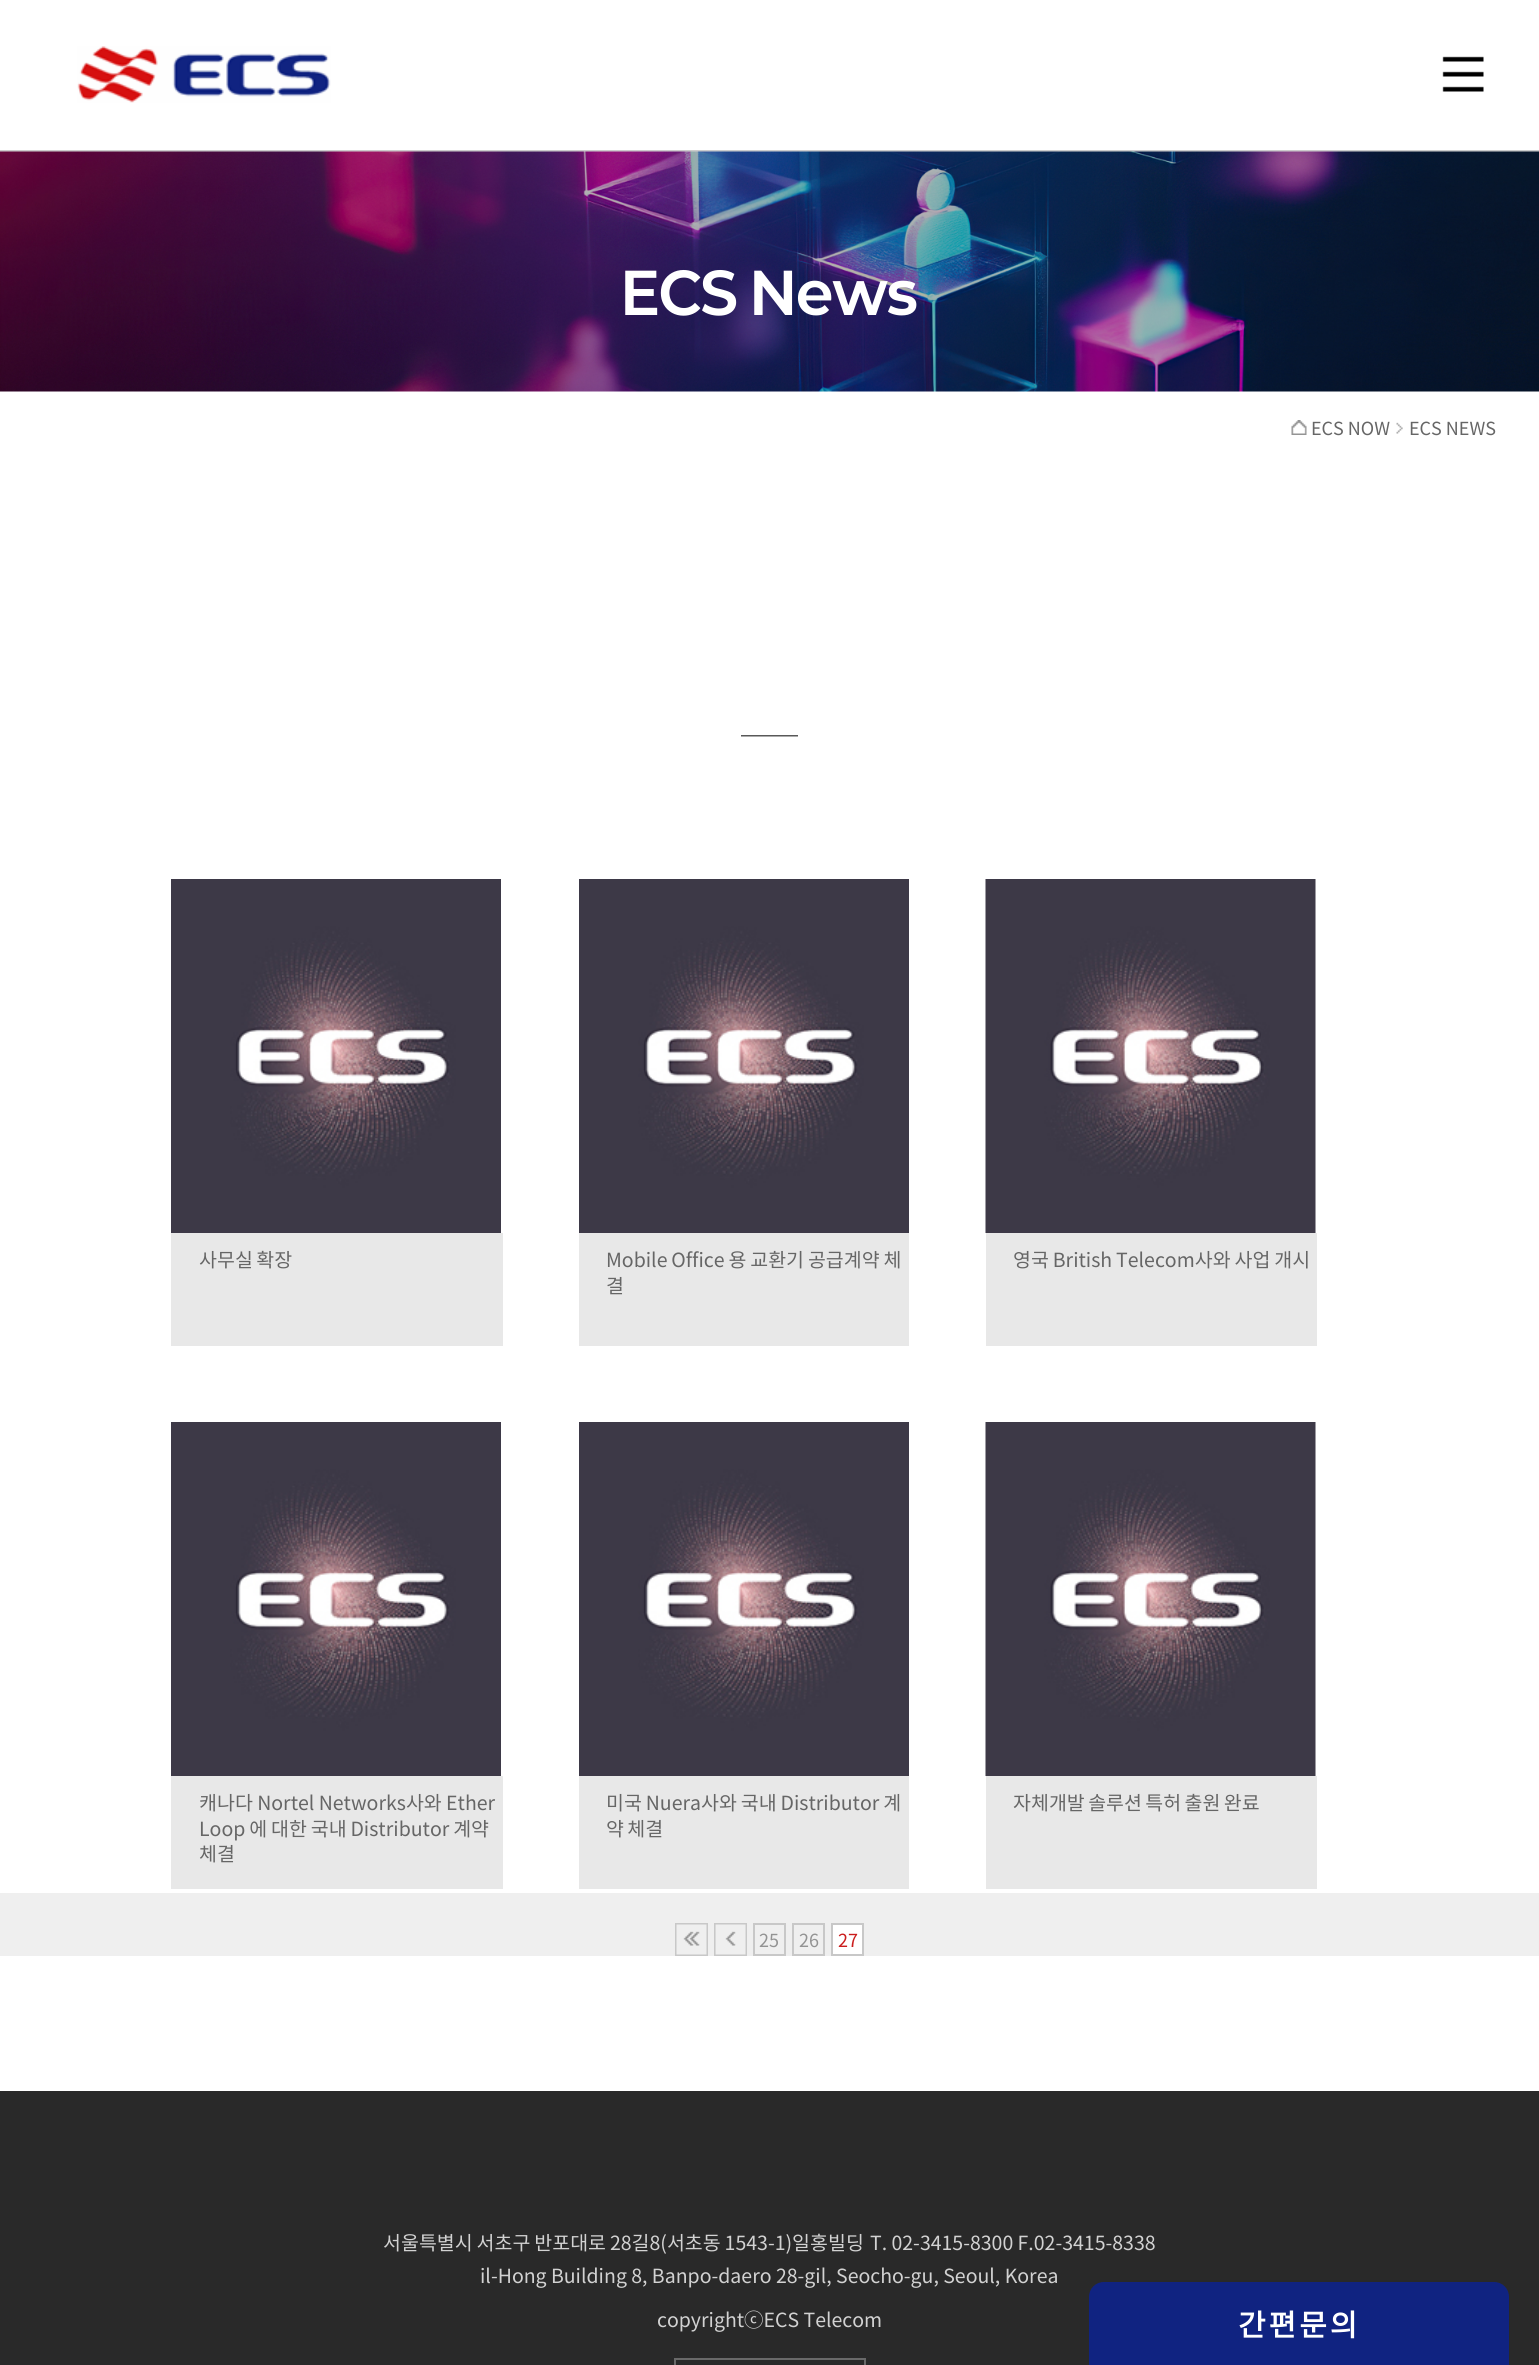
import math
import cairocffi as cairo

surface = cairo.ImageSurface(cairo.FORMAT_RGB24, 1539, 2365)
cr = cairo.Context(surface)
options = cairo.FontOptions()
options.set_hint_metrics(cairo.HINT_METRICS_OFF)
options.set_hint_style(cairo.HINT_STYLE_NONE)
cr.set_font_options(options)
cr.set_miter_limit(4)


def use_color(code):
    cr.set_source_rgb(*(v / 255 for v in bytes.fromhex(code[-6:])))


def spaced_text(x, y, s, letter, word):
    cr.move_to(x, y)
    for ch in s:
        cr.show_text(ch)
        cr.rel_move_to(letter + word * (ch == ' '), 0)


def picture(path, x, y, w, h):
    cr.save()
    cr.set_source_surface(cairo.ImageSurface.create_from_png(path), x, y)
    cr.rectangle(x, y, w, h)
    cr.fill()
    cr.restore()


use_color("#efefef")
cr.paint()
use_color("#ffffff")
cr.rectangle(0, 0, 1539, 1893)
cr.fill()
picture("img1.png", 1442, 56, 42, 36)
use_color("#cccccc")
cr.rectangle(0, 150, 1539, 2)
cr.fill()
picture("img2.png", 77, 46, 254, 57)
picture("img3.png", 0, 151, 1539, 241)
cr.select_font_face("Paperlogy", cairo.FONT_SLANT_NORMAL, cairo.FONT_WEIGHT_BOLD)
cr.set_font_size(57)
use_color("#ffffff")
cr.move_to(621, 315)
cr.show_text("ECS News")
picture("img4.png", 1291, 420, 16, 15)
cr.select_font_face("Noto Sans CJK KR")
cr.set_font_size(18)
use_color("#666666")
cr.move_to(1311, 435)
cr.show_text("ECS NOW")
picture("img5.png", 1396, 422, 7, 12)
cr.move_to(1409, 435)
cr.show_text("ECS NEWS")
picture("img6.png", 741, 735, 57, 2)
picture("img7.png", 171, 879, 330, 354)
use_color("#e8e8e8")
cr.rectangle(171, 1233, 332, 113)
cr.fill()
cr.set_font_size(19.5)
use_color("#666666")
spaced_text(199, 1267, "사무실 확장", 0, -1)
picture("img8.png", 579, 879, 330, 354)
use_color("#e8e8e8")
cr.rectangle(579, 1233, 330, 113)
cr.fill()
use_color("#666666")
spaced_text(606, 1267, "Mobile Office 용 교환기 공급계약 체", 0, -0.5)
cr.move_to(606, 1293)
cr.show_text("결")
picture("img9.png", 985, 879, 331, 354)
use_color("#e8e8e8")
cr.rectangle(986, 1233, 331, 113)
cr.fill()
use_color("#666666")
spaced_text(1013, 1267, "영국 British Telecom사와 사업 개시", 0, -0.5)
picture("img7.png", 171, 1422, 330, 354)
use_color("#e8e8e8")
cr.rectangle(171, 1776, 332, 113)
cr.fill()
use_color("#666666")
cr.move_to(199, 1810)
cr.show_text("캐나다 Nortel Networks사와 Ether")
spaced_text(199, 1836, "Loop 에 대한 국내 Distributor 계약", 0, -0.5)
cr.move_to(199, 1861)
cr.show_text("체결")
picture("img8.png", 579, 1422, 330, 354)
use_color("#e8e8e8")
cr.rectangle(579, 1776, 330, 113)
cr.fill()
use_color("#666666")
spaced_text(606, 1810, "미국 Nuera사와 국내 Distributor 계", 0, -0.5)
spaced_text(606, 1836, "약 체결", 0, -1)
picture("img9.png", 985, 1422, 331, 354)
use_color("#e8e8e8")
cr.rectangle(986, 1776, 331, 113)
cr.fill()
use_color("#666666")
spaced_text(1013, 1810, "자체개발 솔루션 특허 출원 완료", 0, -1)
picture("img10.png", 675, 1923, 33, 33)
picture("img11.png", 714, 1923, 33, 33)
cr.rectangle(754, 1924, 31, 31)
use_color("#c8c8c8")
cr.stroke()
cr.set_font_size(18)
use_color("#939393")
cr.move_to(759, 1947)
cr.show_text("25")
cr.rectangle(793, 1924, 31, 31)
use_color("#c8c8c8")
cr.stroke()
use_color("#939393")
cr.move_to(799, 1947)
cr.show_text("26")
use_color("#ffffff")
cr.rectangle(832, 1924, 31, 31)
cr.fill_preserve()
use_color("#c8c8c8")
cr.stroke()
use_color("#cb1d1d")
cr.move_to(838, 1947)
cr.show_text("27")
use_color("#ffffff")
cr.rectangle(0, 1956, 1539, 135)
cr.fill()
use_color("#292929")
cr.rectangle(0, 2091, 1539, 274)
cr.fill()
cr.set_font_size(19.5)
use_color("#d2d2d2")
spaced_text(383, 2250, "서울특별시 서초구 반포대로 28길8(서초동 1543-1)일홍빌딩", 0, -0.5)
cr.move_to(870, 2250)
cr.show_text("T. 02-3415-8300 F.02-3415-8338")
cr.move_to(480, 2283)
cr.show_text("il-Hong Building 8, Banpo-daero 28-gil, Seocho-gu, Seoul, Korea")
cr.move_to(657, 2327)
cr.show_text("copyrightⓒECS Telecom")
cr.rectangle(675, 2359, 190, 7)
use_color("#696969")
cr.stroke()
use_color("#102381")
cr.new_path()
cr.move_to(1104, 2282)
cr.line_to(1494, 2282)
cr.curve_to(1502.5, 2282, 1509, 2288.5, 1509, 2297)
cr.line_to(1509, 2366)
cr.line_to(1089, 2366)
cr.line_to(1089, 2297)
cr.curve_to(1089, 2288.5, 1095.5, 2282, 1104, 2282)
cr.close_path()
cr.fill()
cr.select_font_face("Noto Sans CJK KR", cairo.FONT_SLANT_NORMAL, cairo.FONT_WEIGHT_BOLD)
cr.set_font_size(30)
use_color("#ffffff")
spaced_text(1238, 2336, "간편문의", 3, 0)
surface.write_to_png("result.png")
